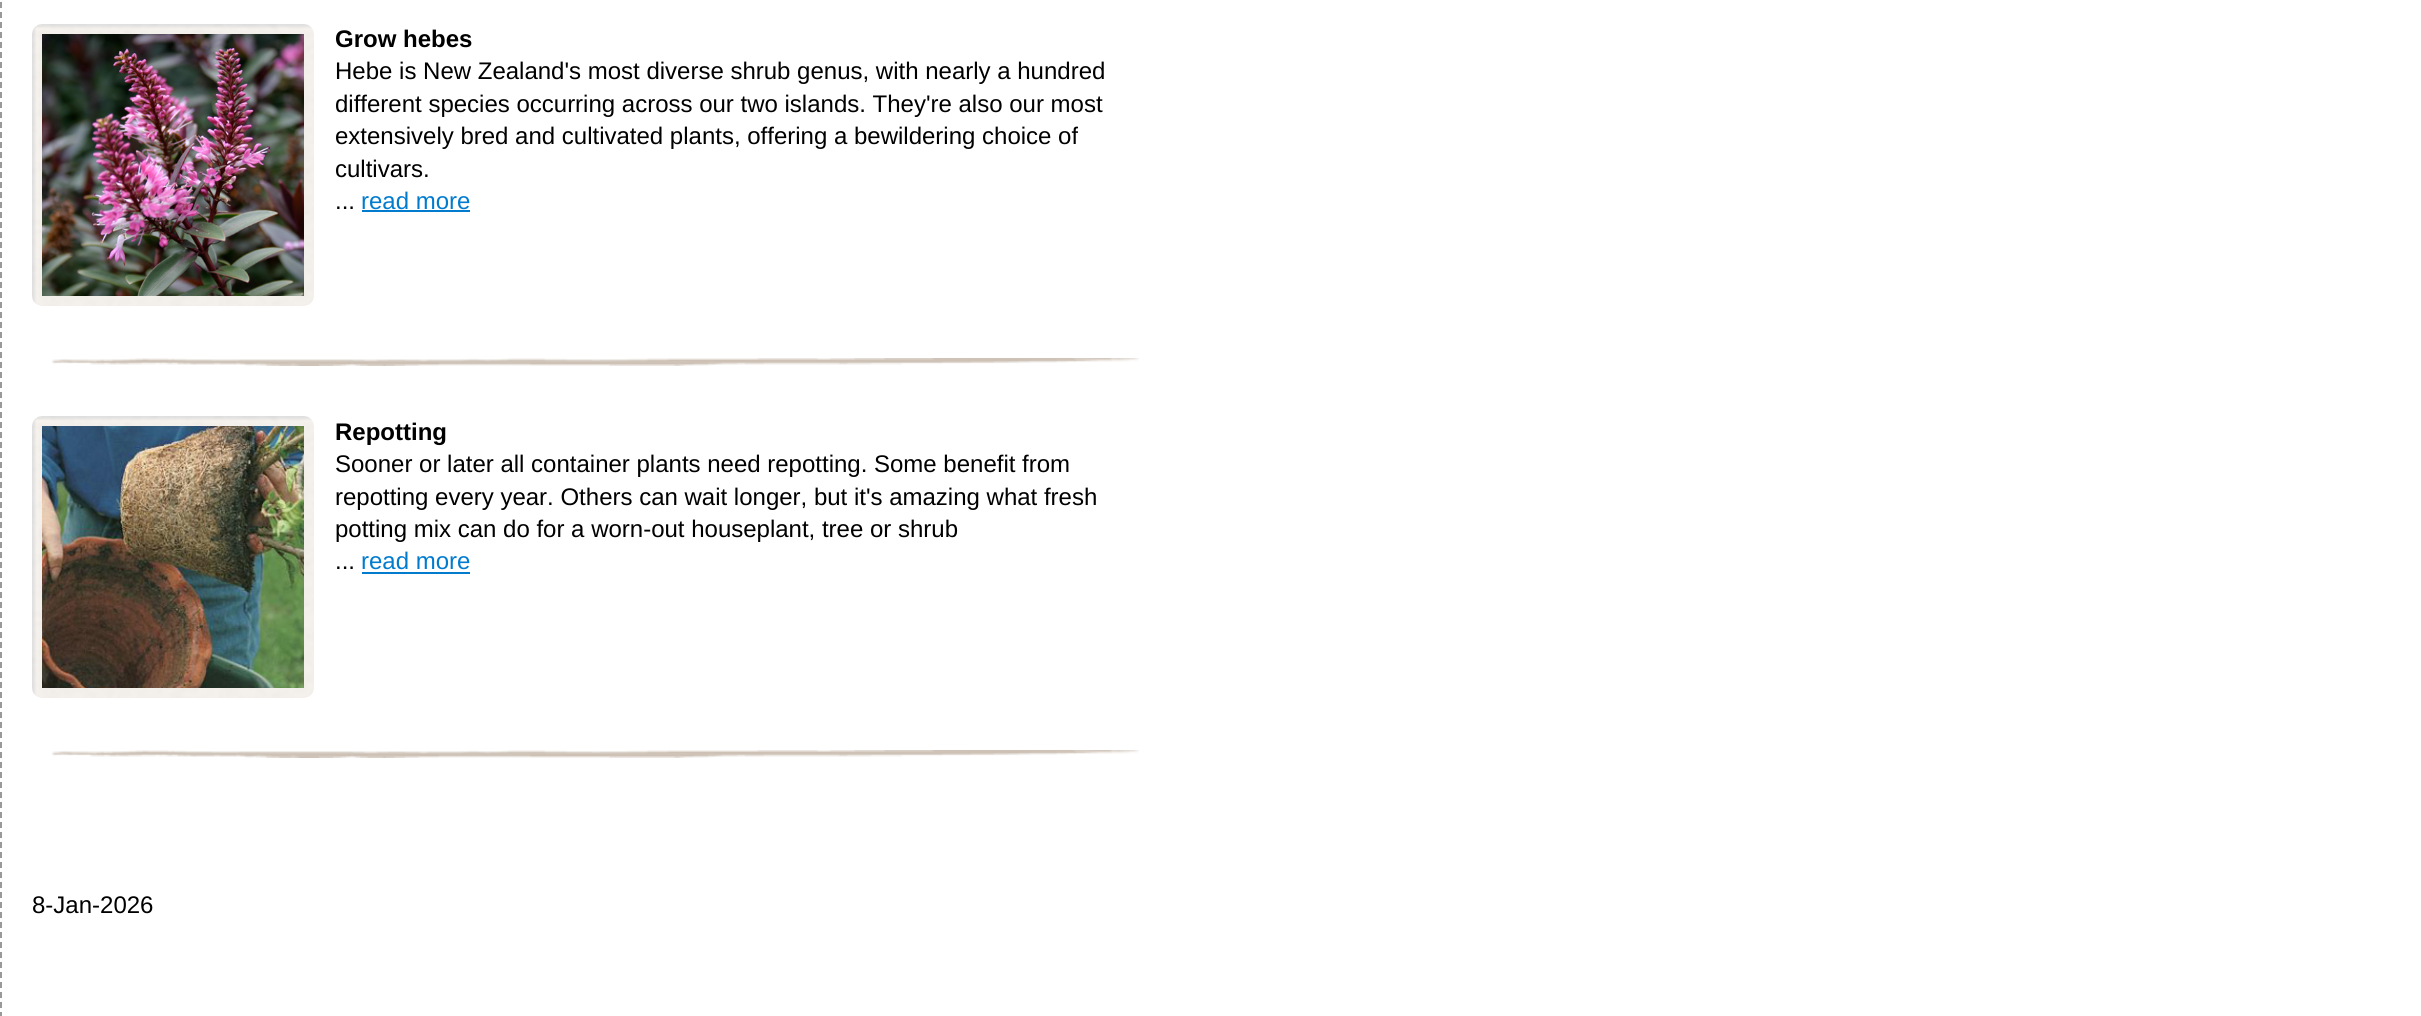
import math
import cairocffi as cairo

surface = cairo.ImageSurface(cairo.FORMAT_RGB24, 2421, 1016)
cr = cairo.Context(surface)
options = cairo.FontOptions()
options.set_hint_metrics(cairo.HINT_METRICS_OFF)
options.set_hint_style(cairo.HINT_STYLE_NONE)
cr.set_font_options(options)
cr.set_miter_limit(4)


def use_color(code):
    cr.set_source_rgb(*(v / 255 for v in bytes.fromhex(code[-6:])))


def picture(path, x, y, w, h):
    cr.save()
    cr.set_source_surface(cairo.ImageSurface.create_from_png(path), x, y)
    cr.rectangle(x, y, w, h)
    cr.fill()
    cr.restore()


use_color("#ffffff")
cr.paint()
cr.new_path()
cr.move_to(1, -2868)
cr.line_to(1, 1016)
use_color("#999999")
cr.set_dash([6, 4])
cr.stroke()
picture("img1.png", 32, 24, 282, 282)
cr.select_font_face("Liberation Sans", cairo.FONT_SLANT_NORMAL, cairo.FONT_WEIGHT_BOLD)
cr.set_font_size(24)
use_color("#000000")
cr.move_to(335, 47)
cr.show_text("Grow hebes")
cr.select_font_face("Liberation Sans")
cr.move_to(335, 79)
cr.show_text("Hebe is New Zealand's most diverse shrub genus, with nearly a hundred")
cr.move_to(335, 112)
cr.show_text("different species occurring across our two islands. They're also our most")
cr.move_to(335, 144)
cr.show_text("extensively bred and cultivated plants, offering a bewildering choice of")
cr.move_to(335, 177)
cr.show_text("cultivars.")
cr.move_to(335, 209)
cr.show_text("...")
use_color("#007bce")
cr.move_to(361, 209)
cr.show_text("read more")
cr.rectangle(362, 210, 108, 2)
cr.fill()
picture("img2.png", 52, 358, 1087, 8)
picture("img3.png", 32, 416, 282, 282)
cr.select_font_face("Liberation Sans", cairo.FONT_SLANT_NORMAL, cairo.FONT_WEIGHT_BOLD)
use_color("#000000")
cr.move_to(335, 440)
cr.show_text("Repotting")
cr.select_font_face("Liberation Sans")
cr.move_to(335, 472)
cr.show_text("Sooner or later all container plants need repotting. Some benefit from")
cr.move_to(335, 505)
cr.show_text("repotting every year. Others can wait longer, but it's amazing what fresh")
cr.move_to(335, 537)
cr.show_text("potting mix can do for a worn-out houseplant, tree or shrub")
cr.move_to(335, 569)
cr.show_text("...")
use_color("#007bce")
cr.move_to(361, 569)
cr.show_text("read more")
cr.rectangle(362, 572, 108, 2)
cr.fill()
picture("img2.png", 52, 750, 1087, 8)
use_color("#000000")
cr.move_to(32, 913)
cr.show_text("8-Jan-2026")
surface.write_to_png("result.png")
